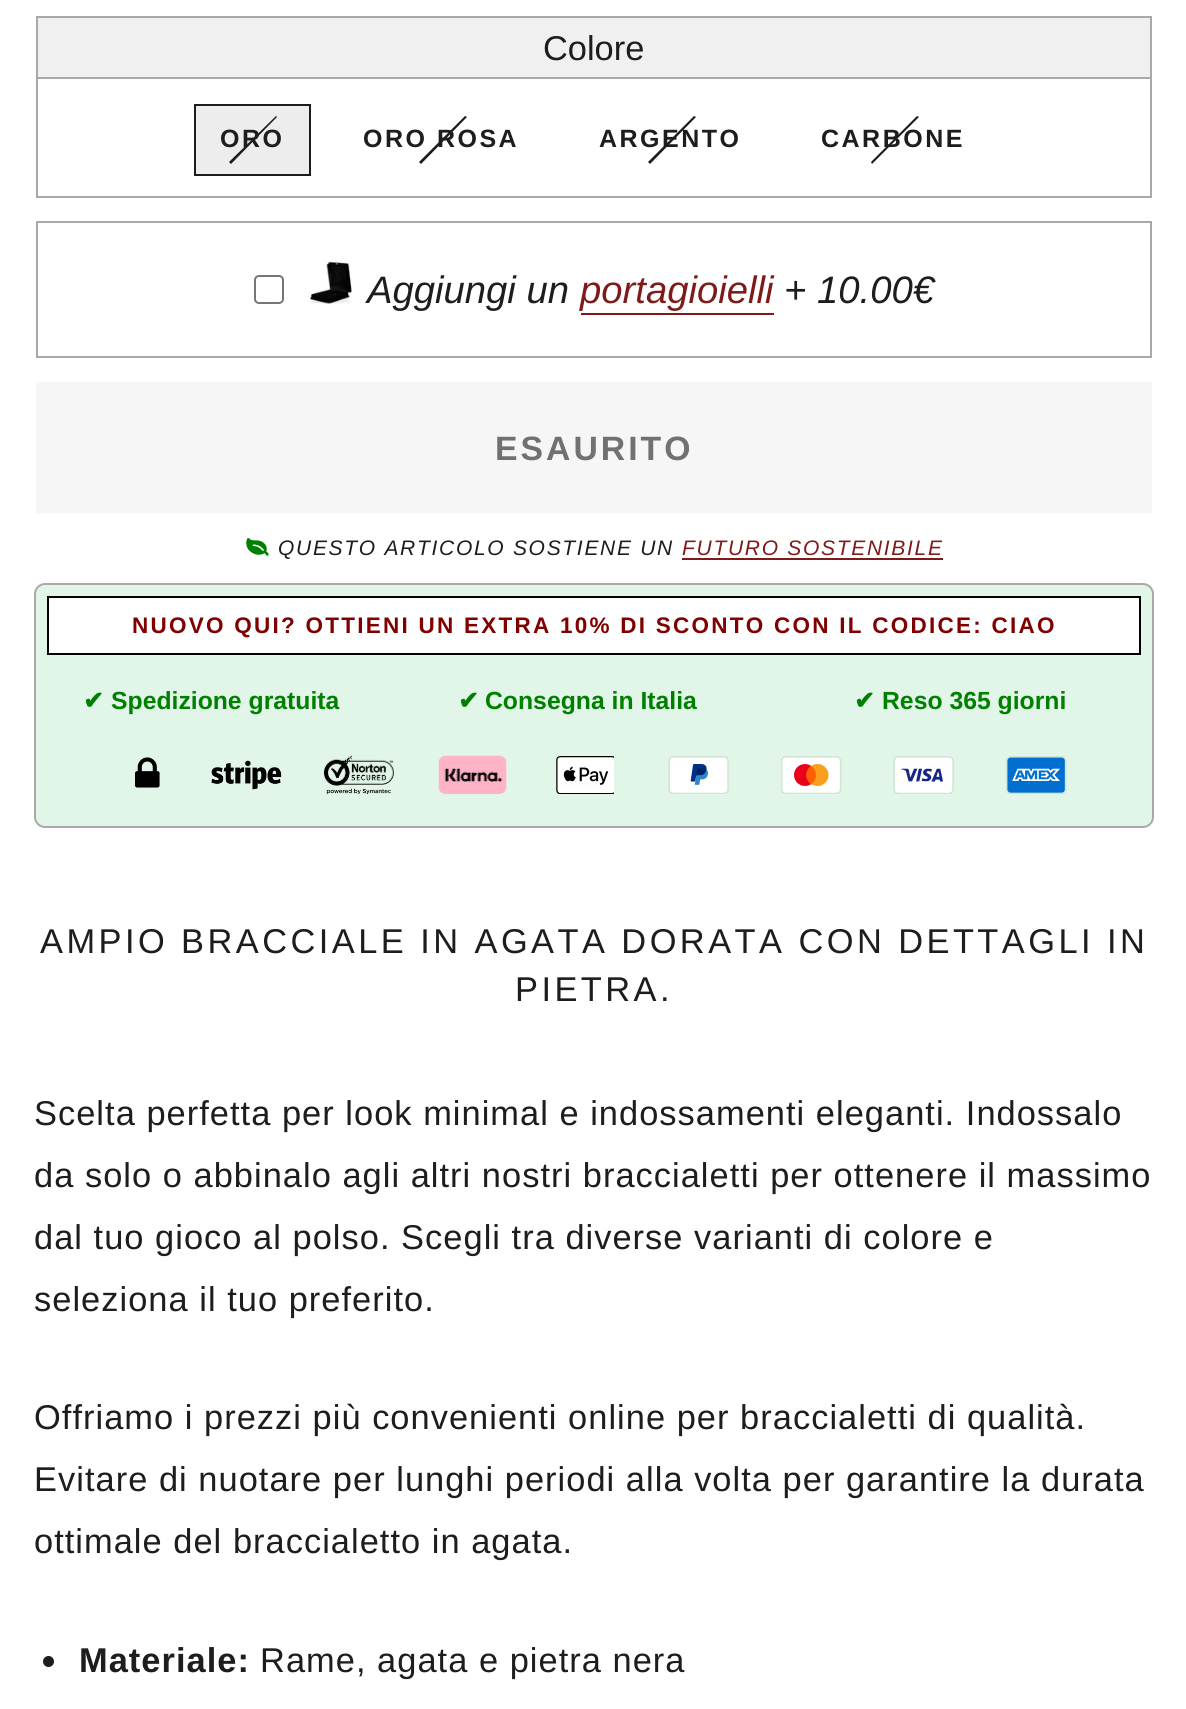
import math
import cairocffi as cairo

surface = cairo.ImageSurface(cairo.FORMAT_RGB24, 1186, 1709)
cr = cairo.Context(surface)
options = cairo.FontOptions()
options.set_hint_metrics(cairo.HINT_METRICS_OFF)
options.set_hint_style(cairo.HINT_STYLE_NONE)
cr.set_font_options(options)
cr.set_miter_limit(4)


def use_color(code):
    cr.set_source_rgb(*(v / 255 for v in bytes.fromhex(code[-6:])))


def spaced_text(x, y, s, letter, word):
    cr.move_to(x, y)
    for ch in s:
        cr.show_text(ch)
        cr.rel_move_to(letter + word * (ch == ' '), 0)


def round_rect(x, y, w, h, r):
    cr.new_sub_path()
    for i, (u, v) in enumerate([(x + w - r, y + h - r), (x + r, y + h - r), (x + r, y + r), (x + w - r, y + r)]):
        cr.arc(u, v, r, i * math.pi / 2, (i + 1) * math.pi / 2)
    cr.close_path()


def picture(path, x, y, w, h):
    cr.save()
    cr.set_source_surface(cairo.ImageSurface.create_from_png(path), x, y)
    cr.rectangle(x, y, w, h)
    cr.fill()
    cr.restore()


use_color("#ffffff")
cr.paint()
use_color("#f0f0f0")
cr.rectangle(38, 18, 1112, 59)
cr.fill()
use_color("#a9a9a9")
cr.rectangle(36, 16, 1116, 2)
cr.fill()
cr.rectangle(1150, 16, 2, 63)
cr.fill()
cr.rectangle(36, 16, 2, 63)
cr.fill()
cr.select_font_face("Liberation Sans")
cr.set_font_size(34.4)
use_color("#1c1d1d")
cr.move_to(543, 60)
cr.show_text("Colore")
cr.rectangle(37, 78, 1114, 119)
use_color("#a9a9a9")
cr.stroke()
use_color("#ededed")
cr.rectangle(195, 105, 115, 70)
cr.fill_preserve()
use_color("#1c1d1d")
cr.stroke()
cr.new_path()
cr.move_to(276, 116)
cr.line_to(277, 117)
cr.line_to(231, 164)
cr.line_to(229, 162)
cr.close_path()
cr.fill()
cr.select_font_face("Liberation Sans", cairo.FONT_SLANT_NORMAL, cairo.FONT_WEIGHT_BOLD)
cr.set_font_size(25)
spaced_text(220, 147, "ORO", 2.5, 0)
cr.new_path()
cr.move_to(465, 116)
cr.line_to(467, 117)
cr.line_to(421, 164)
cr.line_to(419, 162)
cr.close_path()
cr.fill()
spaced_text(363, 147, "ORO ROSA", 2.5, 0)
cr.new_path()
cr.move_to(694, 116)
cr.line_to(696, 117)
cr.line_to(650, 164)
cr.line_to(648, 162)
cr.close_path()
cr.fill()
spaced_text(599, 147, "ARGENTO", 2.5, 0)
cr.new_path()
cr.move_to(917, 116)
cr.line_to(919, 117)
cr.line_to(872, 164)
cr.line_to(871, 162)
cr.close_path()
cr.fill()
spaced_text(821, 147, "CARBONE", 2.5, 0)
cr.rectangle(37, 222, 1114, 135)
use_color("#a9a9a9")
cr.stroke()
round_rect(255, 276, 28, 27, 4)
use_color("#767676")
cr.stroke()
picture("img1.png", 310, 261, 42, 43)
cr.select_font_face("Liberation Sans", cairo.FONT_SLANT_ITALIC)
cr.set_font_size(38.25)
use_color("#1c1d1d")
cr.move_to(367, 303)
cr.show_text("Aggiungi un")
use_color("#7f1a1a")
cr.move_to(580, 303)
cr.show_text("portagioielli")
cr.rectangle(581, 313, 193, 2)
cr.fill()
use_color("#1c1d1d")
cr.move_to(784, 303)
cr.show_text("+ 10.00€")
use_color("#f6f6f6")
cr.rectangle(36, 382, 1116, 131)
cr.fill()
cr.select_font_face("Liberation Sans", cairo.FONT_SLANT_NORMAL, cairo.FONT_WEIGHT_BOLD)
cr.set_font_size(33.75)
use_color("#717171")
spaced_text(495, 460, "ESAURITO", 3, 0)
picture("img2.png", 246, 538, 23, 18)
cr.select_font_face("Liberation Sans", cairo.FONT_SLANT_ITALIC)
cr.set_font_size(21)
use_color("#1c1d1d")
spaced_text(278, 555, "QUESTO ARTICOLO SOSTIENE UN", 1.7, 0)
use_color("#7f1a1a")
spaced_text(682, 555, "FUTURO SOSTENIBILE", 1.7, 0)
cr.rectangle(682, 558, 261, 2)
cr.fill()
use_color("#e1f5e8")
round_rect(35, 584, 1118, 243, 10)
cr.fill_preserve()
use_color("#a9a9a9")
cr.stroke()
use_color("#ffffff")
cr.rectangle(48, 597, 1092, 57)
cr.fill_preserve()
use_color("#000000")
cr.stroke()
cr.select_font_face("Liberation Sans", cairo.FONT_SLANT_NORMAL, cairo.FONT_WEIGHT_BOLD)
cr.set_font_size(22.5)
use_color("#800000")
spaced_text(132, 633, "NUOVO QUI? OTTIENI UN EXTRA 10% DI SCONTO CON IL CODICE: CIAO", 2.25, 0)
cr.select_font_face("DejaVu Sans", cairo.FONT_SLANT_NORMAL, cairo.FONT_WEIGHT_BOLD)
cr.set_font_size(24.75)
use_color("#008000")
cr.move_to(83, 709)
cr.show_text("✔")
cr.select_font_face("Liberation Sans", cairo.FONT_SLANT_NORMAL, cairo.FONT_WEIGHT_BOLD)
cr.move_to(111, 709)
cr.show_text("Spedizione gratuita")
cr.select_font_face("DejaVu Sans", cairo.FONT_SLANT_NORMAL, cairo.FONT_WEIGHT_BOLD)
cr.move_to(458, 709)
cr.show_text("✔")
cr.select_font_face("Liberation Sans", cairo.FONT_SLANT_NORMAL, cairo.FONT_WEIGHT_BOLD)
cr.move_to(485, 709)
cr.show_text("Consegna in Italia")
cr.select_font_face("DejaVu Sans", cairo.FONT_SLANT_NORMAL, cairo.FONT_WEIGHT_BOLD)
cr.move_to(854, 709)
cr.show_text("✔")
cr.select_font_face("Liberation Sans", cairo.FONT_SLANT_NORMAL, cairo.FONT_WEIGHT_BOLD)
cr.move_to(882, 709)
cr.show_text("Reso 365 giorni")
picture("img3.png", 135, 757, 25, 31)
picture("img4.png", 211, 760, 71, 30)
picture("img5.png", 324, 755, 70, 39)
picture("img6.png", 438, 755, 69, 39)
picture("img7.png", 556, 756, 58, 38)
picture("img8.png", 668, 756, 61, 38)
picture("img9.png", 781, 756, 61, 38)
picture("img10.png", 893, 756, 61, 38)
picture("img11.png", 1006, 756, 61, 38)
cr.select_font_face("Liberation Sans")
cr.set_font_size(34.4)
use_color("#1c1d1d")
spaced_text(40, 953, "AMPIO BRACCIALE IN AGATA DORATA CON DETTAGLI IN", 3.45, 0)
spaced_text(515, 1001, "PIETRA.", 3.45, 0)
spaced_text(34, 1125, "Scelta perfetta per look minimal e indossamenti eleganti. Indossalo", 1.03, 0)
spaced_text(34, 1187, "da solo o abbinalo agli altri nostri braccialetti per ottenere il massimo", 1.03, 0)
spaced_text(34, 1249, "dal tuo gioco al polso. Scegli tra diverse varianti di colore e", 1.03, 0)
spaced_text(34, 1311, "seleziona il tuo preferito.", 1.03, 0)
spaced_text(34, 1429, "Offriamo i prezzi più convenienti online per braccialetti di qualità.", 1.03, 0)
spaced_text(34, 1491, "Evitare di nuotare per lunghi periodi alla volta per garantire la durata", 1.03, 0)
spaced_text(34, 1553, "ottimale del braccialetto in agata.", 1.03, 0)
cr.new_path()
cr.arc(48.5, 1661.5, 5.5, 0, 2 * math.pi)
cr.fill()
cr.select_font_face("Liberation Sans", cairo.FONT_SLANT_NORMAL, cairo.FONT_WEIGHT_BOLD)
spaced_text(79, 1672, "Materiale:", 1.03, 0)
cr.select_font_face("Liberation Sans")
spaced_text(260, 1672, "Rame, agata e pietra nera", 1.03, 0)
surface.write_to_png("result.png")
